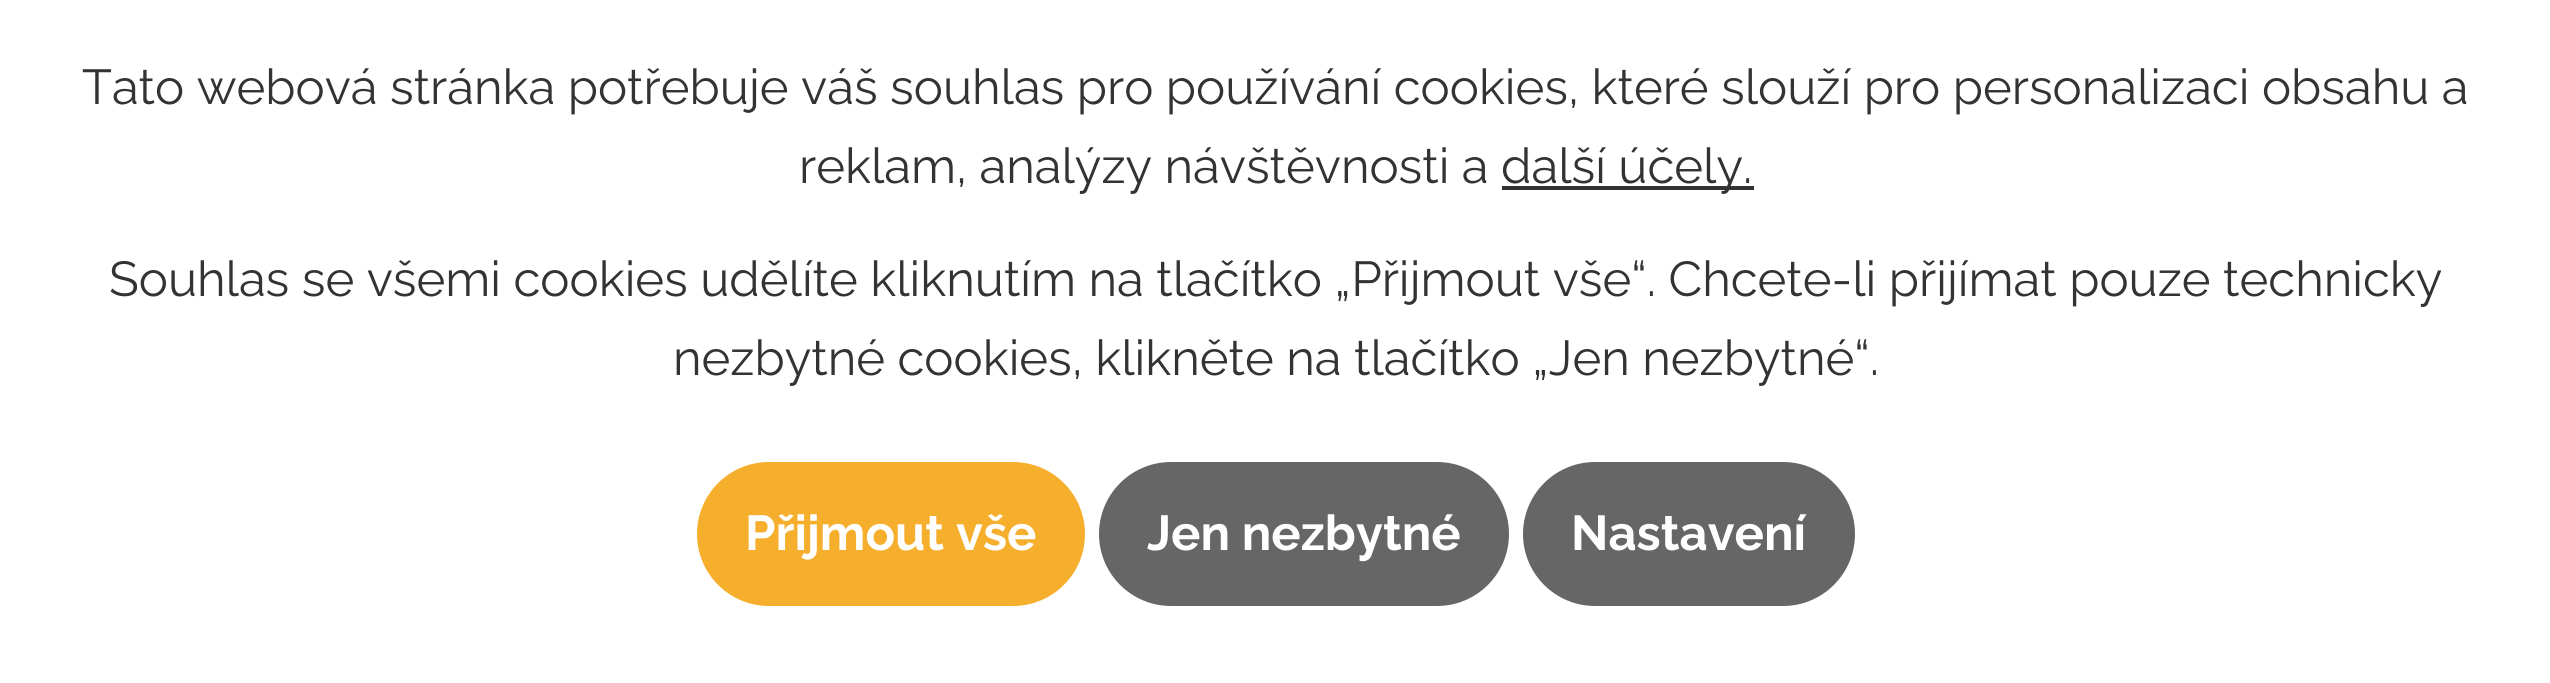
import math
import cairocffi as cairo

surface = cairo.ImageSurface(cairo.FORMAT_RGB24, 2550, 683)
cr = cairo.Context(surface)
options = cairo.FontOptions()
options.set_hint_metrics(cairo.HINT_METRICS_OFF)
options.set_hint_style(cairo.HINT_STYLE_NONE)
cr.set_font_options(options)
cr.set_miter_limit(4)


def use_color(code):
    cr.set_source_rgb(*(v / 255 for v in bytes.fromhex(code[-6:])))


def round_rect(x, y, w, h, r):
    cr.new_sub_path()
    for i, (u, v) in enumerate([(x + w - r, y + h - r), (x + r, y + h - r), (x + r, y + r), (x + w - r, y + r)]):
        cr.arc(u, v, r, i * math.pi / 2, (i + 1) * math.pi / 2)
    cr.close_path()


use_color("#ffffff")
cr.paint()
cr.select_font_face("Raleway")
cr.set_font_size(49)
use_color("#333333")
cr.move_to(82, 104)
cr.show_text("Tato webová stránka potřebuje váš souhlas pro používání cookies, které slouží pro personalizaci obsahu a")
cr.move_to(799, 183)
cr.show_text("reklam, analýzy návštěvnosti a")
cr.rectangle(1502, 186, 252, 4)
cr.fill()
cr.move_to(1501, 183)
cr.show_text("další účely.")
cr.move_to(109, 296)
cr.show_text("Souhlas se všemi cookies udělíte kliknutím na tlačítko „Přijmout vše“. Chcete-li přijímat pouze technicky")
cr.move_to(673, 375)
cr.show_text("nezbytné cookies, klikněte na tlačítko „Jen nezbytné“.")
use_color("#f6ae2d")
round_rect(697, 462, 388, 144, 72)
cr.fill()
cr.select_font_face("Raleway", cairo.FONT_SLANT_NORMAL, cairo.FONT_WEIGHT_BOLD)
use_color("#ffffff")
cr.move_to(745, 550)
cr.show_text("Přijmout vše")
use_color("#666666")
round_rect(1099, 462, 410, 144, 72)
cr.fill()
use_color("#ffffff")
cr.move_to(1147, 550)
cr.show_text("Jen nezbytné")
use_color("#666666")
round_rect(1523, 462, 332, 144, 72)
cr.fill()
use_color("#ffffff")
cr.move_to(1571, 550)
cr.show_text("Nastavení")
surface.write_to_png("result.png")
